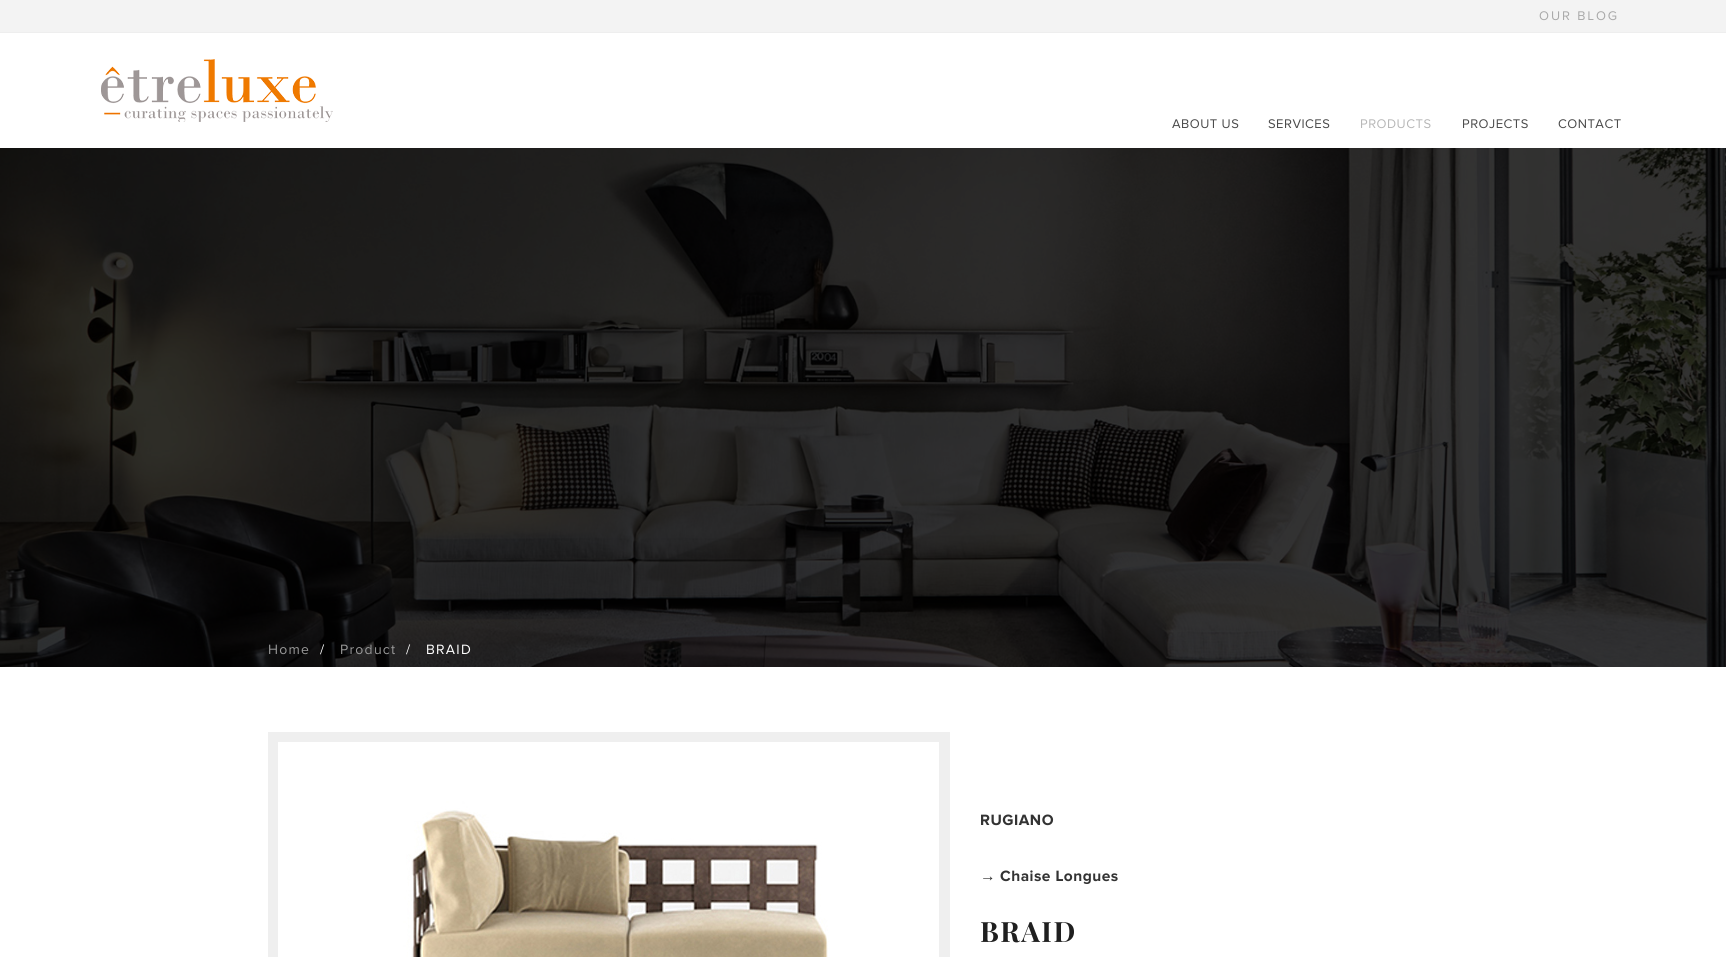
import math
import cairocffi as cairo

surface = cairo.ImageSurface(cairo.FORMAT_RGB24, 1726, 957)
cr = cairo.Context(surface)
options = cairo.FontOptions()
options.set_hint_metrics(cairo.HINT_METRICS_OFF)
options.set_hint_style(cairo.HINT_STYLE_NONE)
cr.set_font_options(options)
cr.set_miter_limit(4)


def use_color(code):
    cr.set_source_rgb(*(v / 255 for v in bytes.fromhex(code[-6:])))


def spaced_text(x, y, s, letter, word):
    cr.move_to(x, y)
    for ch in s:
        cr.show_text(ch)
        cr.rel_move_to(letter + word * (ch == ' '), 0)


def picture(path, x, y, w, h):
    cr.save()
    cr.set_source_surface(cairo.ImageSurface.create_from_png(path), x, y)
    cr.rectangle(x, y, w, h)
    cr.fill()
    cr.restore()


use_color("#ffffff")
cr.paint()
use_color("#f3f3f3")
cr.rectangle(0, 0, 1726, 32)
cr.fill()
cr.select_font_face("Proxima Nova")
cr.set_font_size(13)
use_color("#a9a9a9")
spaced_text(1539, 20, "OUR BLOG", 2, 0)
use_color("#eeeeee")
cr.rectangle(0, 32, 1726, 1)
cr.fill()
picture("img1.png", 101, 59, 232, 63)
use_color("#4a4a4a")
spaced_text(1172, 128, "ABOUT US", 0.5, 0)
spaced_text(1268, 128, "SERVICES", 0.5, 0)
use_color("#b7b7b7")
spaced_text(1360, 128, "PRODUCTS", 0.5, 0)
use_color("#4a4a4a")
spaced_text(1462, 128, "PROJECTS", 0.5, 0)
spaced_text(1558, 128, "CONTACT", 0.5, 0)
picture("img2.png", 0, 148, 1726, 519)
cr.set_font_size(14)
use_color("#999999")
spaced_text(268, 654, "Home", 1.25, 0)
use_color("#ffffff")
spaced_text(320, 654, "/", 1.25, 0)
use_color("#999999")
spaced_text(340, 654, "Product", 1.25, 0)
use_color("#ffffff")
spaced_text(406, 654, "/", 1.25, 0)
spaced_text(426, 654, "BRAID", 1.25, 0)
use_color("#efefef")
cr.rectangle(268, 732, 682, 225)
cr.fill()
picture("img3.png", 278, 742, 661, 215)
cr.select_font_face("Proxima Nova", cairo.FONT_SLANT_NORMAL, cairo.FONT_WEIGHT_BOLD)
cr.set_font_size(15.5)
use_color("#333333")
spaced_text(980, 825, "RUGIANO", 0.5, 0)
cr.select_font_face("Liberation Serif", cairo.FONT_SLANT_NORMAL, cairo.FONT_WEIGHT_BOLD)
spaced_text(980, 881, "→", 0.5, 0)
cr.select_font_face("Proxima Nova", cairo.FONT_SLANT_NORMAL, cairo.FONT_WEIGHT_BOLD)
spaced_text(1000, 881, "Chaise Longues", 0.5, 0)
cr.select_font_face("Playfair Display", cairo.FONT_SLANT_NORMAL, cairo.FONT_WEIGHT_BOLD)
cr.set_font_size(28)
use_color("#1f1f1f")
spaced_text(980, 942, "BRAID", 1.5, 0)
surface.write_to_png("result.png")
